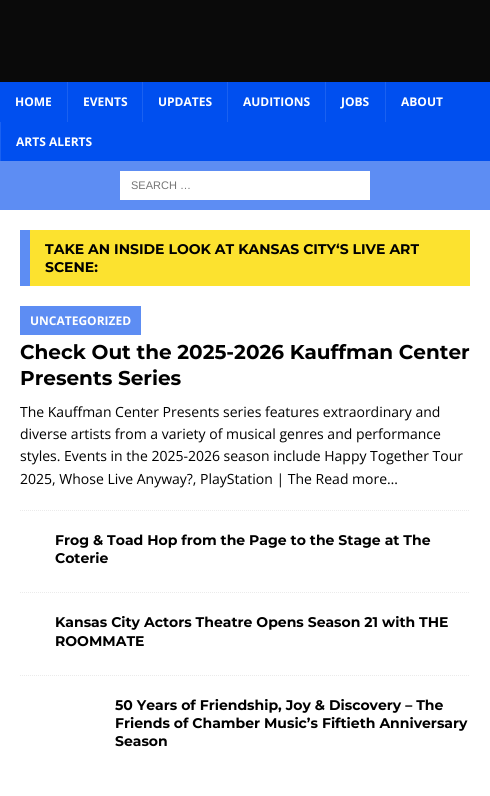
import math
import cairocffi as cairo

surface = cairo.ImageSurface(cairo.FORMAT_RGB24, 490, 796)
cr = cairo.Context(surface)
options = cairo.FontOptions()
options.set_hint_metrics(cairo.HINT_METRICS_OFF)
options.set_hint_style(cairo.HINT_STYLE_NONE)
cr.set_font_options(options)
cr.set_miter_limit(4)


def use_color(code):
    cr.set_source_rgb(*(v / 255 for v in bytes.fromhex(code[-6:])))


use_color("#0a0a0a")
cr.paint()
use_color("#004fef")
cr.rectangle(0, 82, 490, 79)
cr.fill()
cr.select_font_face("Open Sans", cairo.FONT_SLANT_NORMAL, cairo.FONT_WEIGHT_BOLD)
cr.set_font_size(12)
use_color("#ffffff")
cr.move_to(15, 106)
cr.show_text("HOME")
use_color("#1a61f1")
cr.rectangle(67, 82, 1, 40)
cr.fill()
use_color("#ffffff")
cr.move_to(83, 106)
cr.show_text("EVENTS")
use_color("#1a61f1")
cr.rectangle(142, 82, 1, 40)
cr.fill()
use_color("#ffffff")
cr.move_to(158, 106)
cr.show_text("UPDATES")
use_color("#1a61f1")
cr.rectangle(227, 82, 1, 40)
cr.fill()
use_color("#ffffff")
cr.move_to(243, 106)
cr.show_text("AUDITIONS")
use_color("#1a61f1")
cr.rectangle(325, 82, 1, 40)
cr.fill()
use_color("#ffffff")
cr.move_to(341, 106)
cr.show_text("JOBS")
use_color("#1a61f1")
cr.rectangle(385, 82, 1, 40)
cr.fill()
use_color("#ffffff")
cr.move_to(401, 106)
cr.show_text("ABOUT")
use_color("#1a61f1")
cr.rectangle(0, 122, 1, 39)
cr.fill()
use_color("#ffffff")
cr.move_to(16, 146)
cr.show_text("ARTS ALERTS")
use_color("#5d8df3")
cr.rectangle(0, 161, 490, 49)
cr.fill()
use_color("#ffffff")
cr.rectangle(120, 171, 250, 29)
cr.fill()
cr.select_font_face("Liberation Sans")
cr.set_font_size(11)
use_color("#757575")
cr.move_to(131, 189)
cr.show_text("SEARCH …")
use_color("#ffffff")
cr.rectangle(0, 210, 490, 586)
cr.fill()
use_color("#fce22f")
cr.rectangle(30, 230, 440, 56)
cr.fill()
use_color("#5d8df3")
cr.rectangle(20, 230, 10, 56)
cr.fill()
cr.select_font_face("Montserrat", cairo.FONT_SLANT_NORMAL, cairo.FONT_WEIGHT_BOLD)
cr.set_font_size(14)
use_color("#000000")
cr.move_to(45, 254)
cr.show_text("TAKE AN INSIDE LOOK AT KANSAS CITY‘S LIVE ART")
cr.move_to(45, 272)
cr.show_text("SCENE:")
cr.new_path()
cr.move_to(20, 510.5)
cr.line_to(470, 510.5)
use_color("#ebebeb")
cr.set_line_width(1)
cr.set_dash([1, 1])
cr.stroke()
use_color("#5d8df3")
cr.rectangle(20, 306, 121, 29)
cr.fill()
cr.select_font_face("Open Sans", cairo.FONT_SLANT_NORMAL, cairo.FONT_WEIGHT_BOLD)
cr.set_font_size(12)
use_color("#ffffff")
cr.move_to(30, 325)
cr.show_text("UNCATEGORIZED")
cr.select_font_face("Montserrat", cairo.FONT_SLANT_NORMAL, cairo.FONT_WEIGHT_BOLD)
cr.set_font_size(20)
use_color("#000000")
cr.move_to(20, 359)
cr.show_text("Check Out the 2025-2026 Kauffman Center")
cr.move_to(20, 385)
cr.show_text("Presents Series")
cr.select_font_face("Open Sans")
cr.set_font_size(14)
cr.move_to(20, 417)
cr.show_text("The Kauffman Center Presents series features extraordinary and")
cr.move_to(20, 439)
cr.show_text("diverse artists from a variety of musical genres and performance")
cr.move_to(20, 461)
cr.show_text("styles. Events in the 2025-2026 season include Happy Together Tour")
cr.move_to(20, 484)
cr.show_text("2025, Whose Live Anyway?, PlayStation | The Read more…")
cr.new_path()
cr.move_to(20, 592.5)
cr.line_to(470, 592.5)
use_color("#ebebeb")
cr.stroke()
cr.select_font_face("Montserrat", cairo.FONT_SLANT_NORMAL, cairo.FONT_WEIGHT_BOLD)
use_color("#000000")
cr.move_to(55, 545)
cr.show_text("Frog & Toad Hop from the Page to the Stage at The")
cr.move_to(55, 563)
cr.show_text("Coterie")
cr.new_path()
cr.move_to(20, 675.5)
cr.line_to(470, 675.5)
use_color("#ebebeb")
cr.stroke()
use_color("#000000")
cr.move_to(55, 627)
cr.show_text("Kansas City Actors Theatre Opens Season 21 with THE")
cr.move_to(55, 646)
cr.show_text("ROOMMATE")
cr.move_to(115, 710)
cr.show_text("50 Years of Friendship, Joy & Discovery – The")
cr.move_to(115, 728)
cr.show_text("Friends of Chamber Music’s Fiftieth Anniversary")
cr.move_to(115, 746)
cr.show_text("Season")
surface.write_to_png("result.png")
